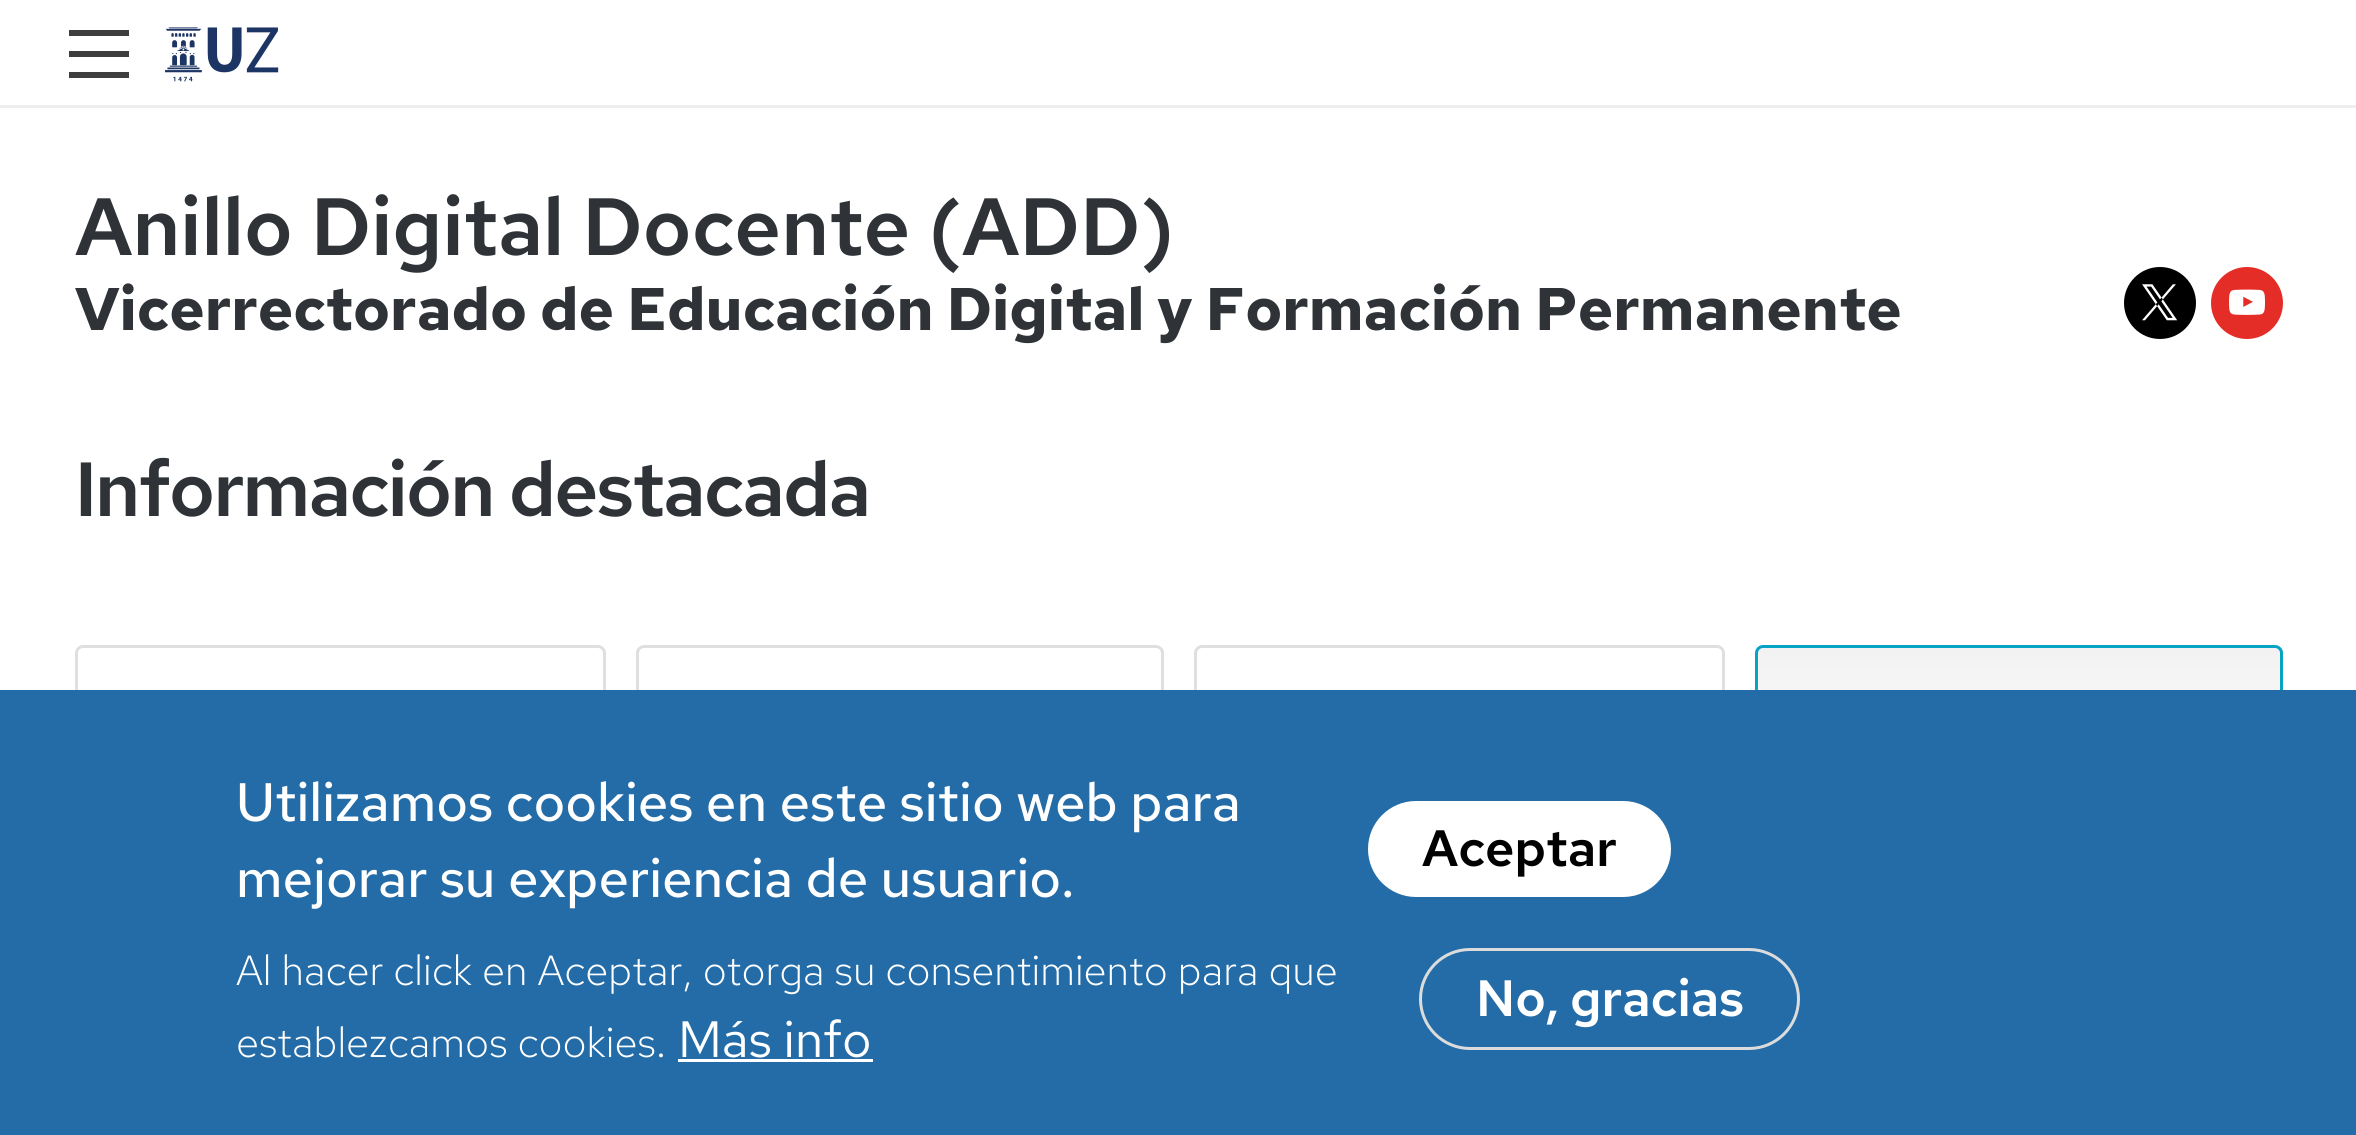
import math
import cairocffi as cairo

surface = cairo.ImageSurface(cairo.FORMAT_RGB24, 2356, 1135)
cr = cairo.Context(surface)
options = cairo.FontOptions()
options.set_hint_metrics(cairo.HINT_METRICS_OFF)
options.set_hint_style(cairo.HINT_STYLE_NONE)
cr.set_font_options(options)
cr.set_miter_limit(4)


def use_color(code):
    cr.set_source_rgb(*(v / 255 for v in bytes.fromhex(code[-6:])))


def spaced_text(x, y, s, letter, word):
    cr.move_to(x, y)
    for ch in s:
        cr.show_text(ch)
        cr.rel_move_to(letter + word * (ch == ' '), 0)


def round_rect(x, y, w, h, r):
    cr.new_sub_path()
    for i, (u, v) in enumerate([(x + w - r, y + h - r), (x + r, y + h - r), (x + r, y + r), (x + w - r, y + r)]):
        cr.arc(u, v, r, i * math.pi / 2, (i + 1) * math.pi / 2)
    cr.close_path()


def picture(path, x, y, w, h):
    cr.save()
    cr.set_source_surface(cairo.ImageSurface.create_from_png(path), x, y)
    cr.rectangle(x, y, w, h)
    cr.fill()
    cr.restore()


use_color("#ffffff")
cr.paint()
use_color("#eeeeee")
cr.rectangle(0, 105, 2356, 3)
cr.fill()
use_color("#3e3e3e")
cr.rectangle(69, 51, 60, 6)
cr.fill()
cr.rectangle(69, 30, 60, 6)
cr.fill()
cr.rectangle(69, 72, 60, 6)
cr.fill()
picture("img1.png", 165, 27, 114, 55)
cr.select_font_face("Red Hat Text SemiBold")
cr.set_font_size(81)
use_color("#2f3337")
cr.move_to(75, 255)
cr.show_text("Anillo Digital Docente (ADD)")
cr.select_font_face("Red Hat Text", cairo.FONT_SLANT_NORMAL, cairo.FONT_WEIGHT_BOLD)
cr.set_font_size(60)
cr.move_to(75, 330)
cr.show_text("Vicerrectorado de Educación Digital y Formación Permanente")
use_color("#000000")
cr.new_path()
cr.arc(2160, 303, 36, 0, 2 * math.pi)
cr.fill()
picture("img2.png", 2142, 284, 36, 37)
use_color("#e52d27")
cr.arc(2247, 303, 36, 0, 2 * math.pi)
cr.fill()
picture("img3.png", 2229, 289, 36, 26)
cr.select_font_face("Red Hat Text SemiBold")
cr.set_font_size(76.5)
use_color("#2f3337")
spaced_text(75, 516, "Información destacada", -1.8, 0)
cr.new_path()
cr.move_to(83, 646.5)
cr.line_to(598, 646.5)
cr.curve_to(601.5, 646.5, 604.5, 649.5, 604.5, 653)
cr.line_to(604.5, 931.5)
cr.line_to(76.5, 931.5)
cr.line_to(76.5, 653)
cr.curve_to(76.5, 649.5, 79.5, 646.5, 83, 646.5)
cr.close_path()
use_color("#dfdfdf")
cr.set_line_width(3)
cr.stroke()
cr.new_path()
cr.move_to(644, 646.5)
cr.line_to(1156, 646.5)
cr.curve_to(1159.5, 646.5, 1162.5, 649.5, 1162.5, 653)
cr.line_to(1162.5, 931.5)
cr.line_to(637.5, 931.5)
cr.line_to(637.5, 653)
cr.curve_to(637.5, 649.5, 640.5, 646.5, 644, 646.5)
cr.close_path()
cr.stroke()
cr.new_path()
cr.move_to(1202, 646.5)
cr.line_to(1717, 646.5)
cr.curve_to(1720.5, 646.5, 1723.5, 649.5, 1723.5, 653)
cr.line_to(1723.5, 931.5)
cr.line_to(1195.5, 931.5)
cr.line_to(1195.5, 653)
cr.curve_to(1195.5, 649.5, 1198.5, 646.5, 1202, 646.5)
cr.close_path()
cr.stroke()
cr.save()
cr.new_path()
cr.move_to(1763, 645)
cr.line_to(2275, 645)
cr.curve_to(2279.5, 645, 2283, 648.5, 2283, 653)
cr.line_to(2283, 933)
cr.line_to(1755, 933)
cr.line_to(1755, 653)
cr.curve_to(1755, 648.5, 1758.5, 645, 1763, 645)
cr.close_path()
cr.clip()
gradient = cairo.LinearGradient(2019, 648, 2019, 930)
gradient.add_color_stop_rgba(0, 0.949, 0.949, 0.949, 1)
gradient.add_color_stop_rgba(0.6, 1, 1, 1, 1)
cr.set_source(gradient)
cr.rectangle(1755, 648, 528, 42)
cr.fill()
cr.restore()
cr.new_path()
cr.move_to(1763, 646.5)
cr.line_to(2275, 646.5)
cr.curve_to(2278.5, 646.5, 2281.5, 649.5, 2281.5, 653)
cr.line_to(2281.5, 931.5)
cr.line_to(1756.5, 931.5)
cr.line_to(1756.5, 653)
cr.curve_to(1756.5, 649.5, 1759.5, 646.5, 1763, 646.5)
cr.close_path()
use_color("#05a4c5")
cr.stroke()
use_color("#236ca7")
cr.rectangle(0, 690, 2356, 445)
cr.fill()
cr.select_font_face("Red Hat Text Medium")
cr.set_font_size(54)
use_color("#ffffff")
cr.move_to(236, 821)
cr.show_text("Utilizamos cookies en este sitio web para")
cr.move_to(236, 897)
cr.show_text("mejorar su experiencia de usuario.")
cr.select_font_face("Red Hat Text Light")
cr.set_font_size(42)
cr.move_to(236, 985)
cr.show_text("Al hacer click en Aceptar, otorga su consentimiento para que")
cr.move_to(236, 1057)
cr.show_text("establezcamos cookies.")
cr.select_font_face("Red Hat Text")
cr.set_font_size(51)
cr.move_to(678, 1057)
cr.show_text("Más info")
cr.rectangle(678, 1059, 195, 3)
cr.fill()
round_rect(1368, 801, 303, 96, 48)
cr.fill()
cr.select_font_face("Red Hat Text SemiBold")
use_color("#000000")
cr.move_to(1422, 866)
cr.show_text("Aceptar")
round_rect(1420.5, 949.5, 378, 99, 49.5)
use_color("#dcdcdc")
cr.stroke()
use_color("#ffffff")
cr.move_to(1476, 1016)
cr.show_text("No, gracias")
surface.write_to_png("result.png")
